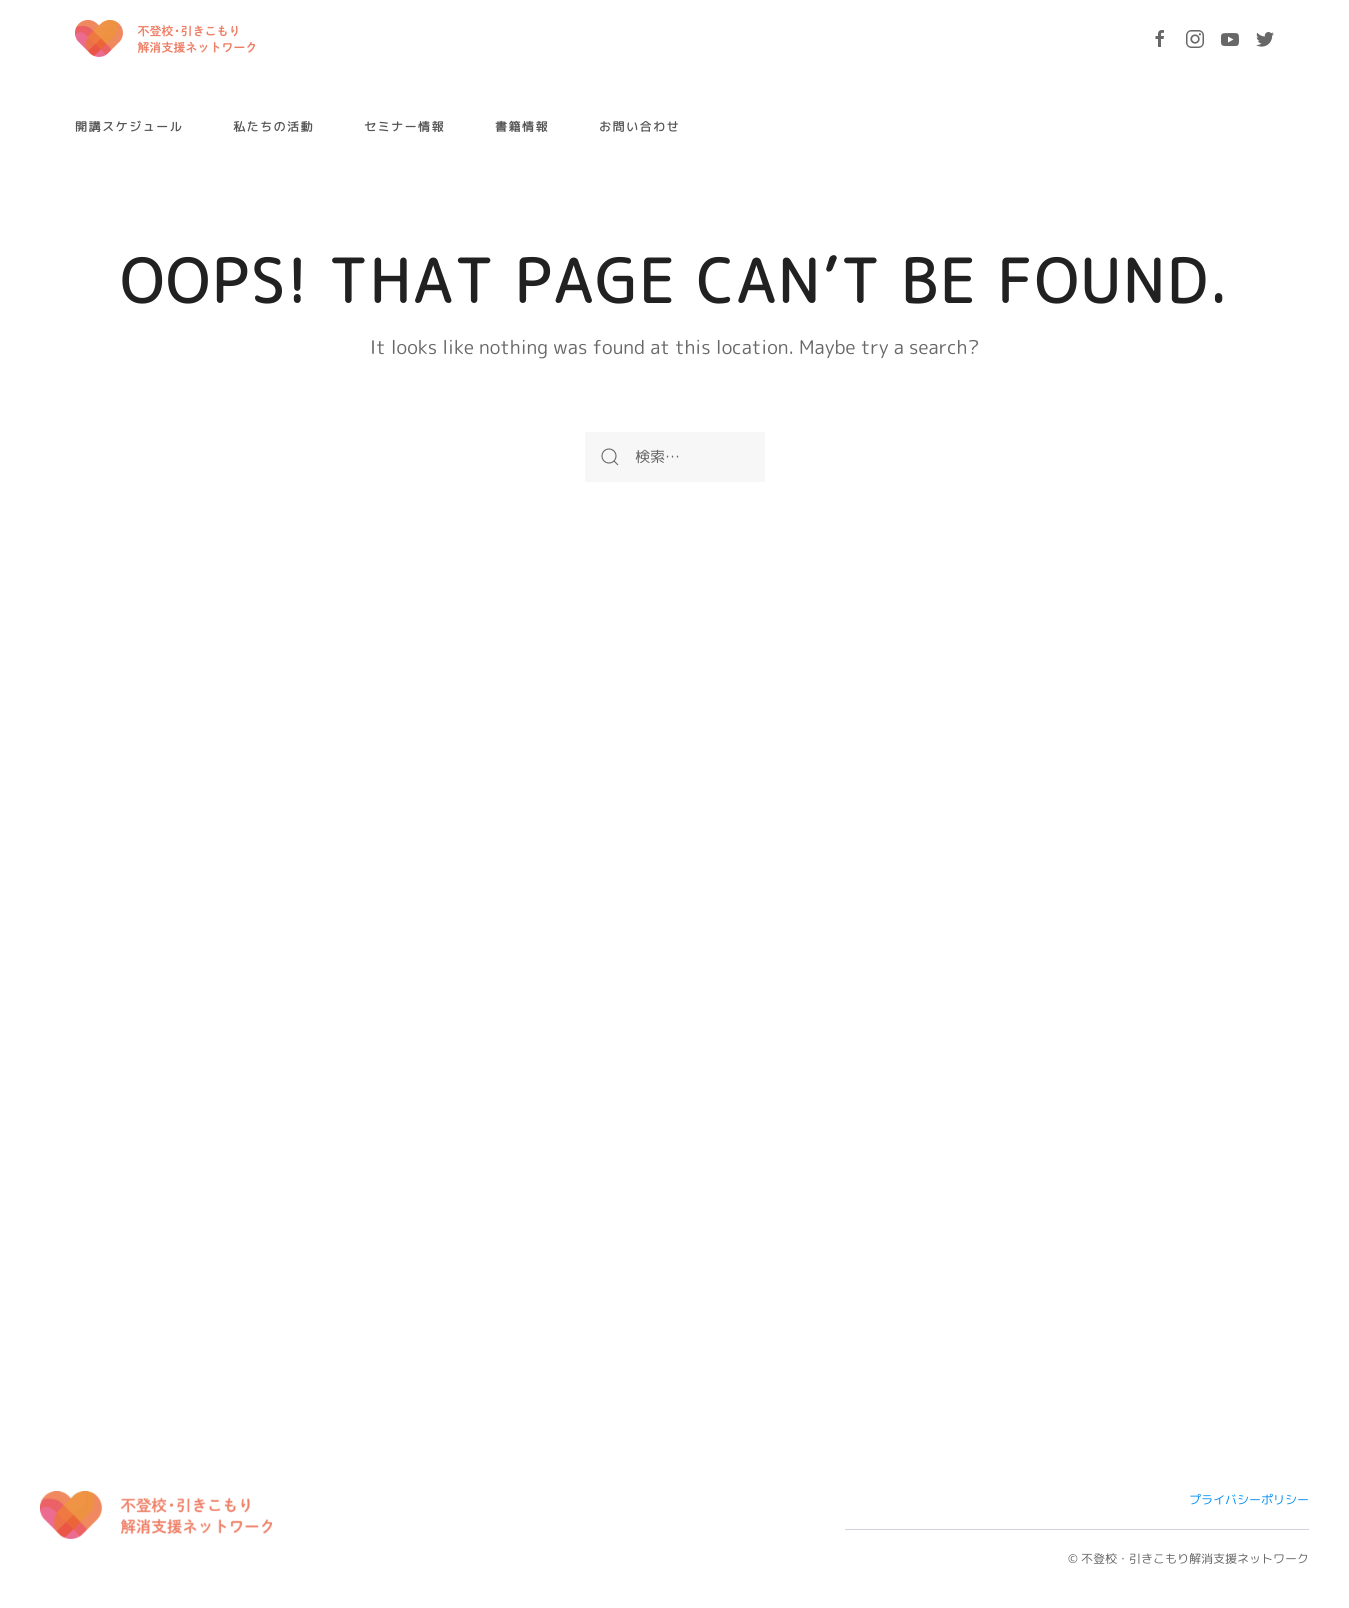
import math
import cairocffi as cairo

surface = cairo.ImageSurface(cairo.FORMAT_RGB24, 1349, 1608)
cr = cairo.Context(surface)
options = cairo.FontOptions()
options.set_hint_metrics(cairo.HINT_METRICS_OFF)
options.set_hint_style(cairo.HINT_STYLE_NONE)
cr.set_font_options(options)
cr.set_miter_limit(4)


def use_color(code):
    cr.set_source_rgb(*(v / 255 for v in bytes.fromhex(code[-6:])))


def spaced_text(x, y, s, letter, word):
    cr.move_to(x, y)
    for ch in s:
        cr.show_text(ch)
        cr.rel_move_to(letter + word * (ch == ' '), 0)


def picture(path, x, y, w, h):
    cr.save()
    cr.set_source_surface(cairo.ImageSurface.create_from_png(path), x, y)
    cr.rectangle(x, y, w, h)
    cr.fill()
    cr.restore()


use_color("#ffffff")
cr.paint()
picture("img1.png", 75, 20, 180, 37)
picture("img2.png", 1155, 30, 9, 17)
picture("img3.png", 1186, 30, 18, 18)
picture("img4.png", 1221, 33, 18, 14)
picture("img5.png", 1256, 32, 18, 15)
cr.select_font_face("Rounded Mplus 1c", cairo.FONT_SLANT_NORMAL, cairo.FONT_WEIGHT_BOLD)
cr.set_font_size(12)
use_color("#555555")
spaced_text(75, 131, "開講スケジュール", 1.5, 0)
spaced_text(233, 131, "私たちの活動", 1.5, 0)
spaced_text(364, 131, "セミナー情報", 1.5, 0)
spaced_text(495, 131, "書籍情報", 1.5, 0)
spaced_text(599, 131, "お問い合わせ", 1.5, 0)
cr.set_font_size(60)
use_color("#212121")
spaced_text(120, 303, "OOPS! THAT PAGE CAN’T BE FOUND.", 3, 0)
cr.select_font_face("Rounded Mplus 1c")
cr.set_font_size(19)
use_color("#686868")
cr.move_to(370, 354)
cr.show_text("It looks like nothing was found at this location. Maybe try a search?")
use_color("#f7f7f7")
cr.rectangle(585, 432, 180, 50)
cr.fill()
cr.arc(609, 456, 7, 0, 2 * math.pi)
use_color("#676767")
cr.set_line_width(1.1)
cr.stroke()
cr.new_path()
cr.move_to(614, 461)
cr.line_to(618, 465)
cr.close_path()
cr.stroke()
cr.set_font_size(15)
use_color("#686868")
cr.move_to(635, 462)
cr.show_text("検索…")
picture("img6.png", 40, 1491, 232, 48)
cr.set_font_size(12)
use_color("#008df0")
cr.move_to(1189, 1504)
cr.show_text("プライバシーポリシー")
use_color("#d4d3db")
cr.rectangle(845, 1529, 464, 1)
cr.fill()
use_color("#686868")
cr.move_to(1068, 1563)
cr.show_text("© 不登校・引きこもり解消支援ネットワーク")
surface.write_to_png("result.png")
